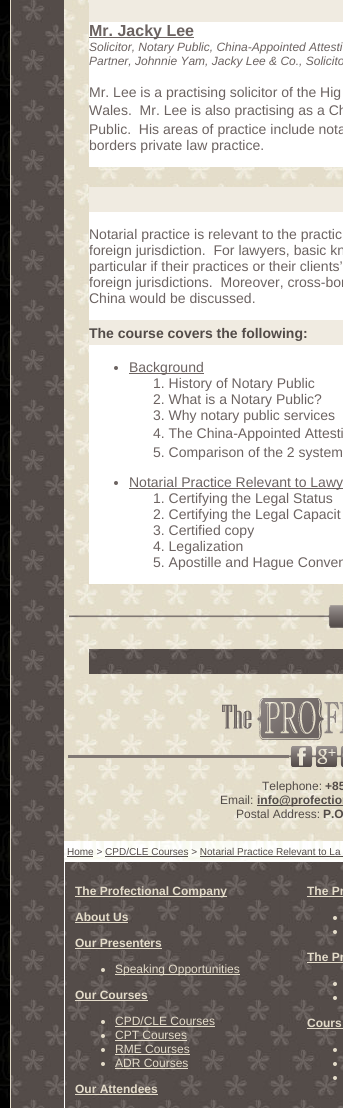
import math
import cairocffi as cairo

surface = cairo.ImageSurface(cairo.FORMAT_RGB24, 343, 1108)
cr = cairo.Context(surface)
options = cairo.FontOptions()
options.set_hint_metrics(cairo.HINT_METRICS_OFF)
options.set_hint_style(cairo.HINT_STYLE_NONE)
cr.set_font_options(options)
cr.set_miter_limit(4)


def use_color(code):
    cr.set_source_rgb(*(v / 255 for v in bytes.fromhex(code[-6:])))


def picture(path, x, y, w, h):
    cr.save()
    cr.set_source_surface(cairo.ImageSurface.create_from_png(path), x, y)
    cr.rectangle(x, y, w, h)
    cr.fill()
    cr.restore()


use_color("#ffffff")
cr.paint()
picture("img1.png", 0, 0, 10, 1108)
use_color("#e4dcca")
cr.rectangle(10, 0, 1, 1108)
cr.fill()
picture("img2.png", 11, 0, 332, 1108)
picture("img3.png", 64, 0, 279, 841)
use_color("#f0ebe1")
cr.rectangle(89, 0, 254, 22)
cr.fill()
use_color("#ffffff")
cr.rectangle(89, 22, 254, 145)
cr.fill()
use_color("#6c6361")
cr.rectangle(89, 37, 105, 1)
cr.fill()
cr.select_font_face("Liberation Sans", cairo.FONT_SLANT_NORMAL, cairo.FONT_WEIGHT_BOLD)
cr.set_font_size(16)
cr.move_to(89, 36)
cr.show_text("Mr. Jacky Lee")
cr.select_font_face("Liberation Sans", cairo.FONT_SLANT_ITALIC)
cr.set_font_size(12)
cr.move_to(89, 51)
cr.show_text("Solicitor, Notary Public, China-Appointed Attesti")
cr.move_to(89, 65)
cr.show_text("Partner, Johnnie Yam, Jacky Lee & Co., Solicito")
cr.select_font_face("Liberation Sans")
cr.set_font_size(14)
cr.move_to(89, 97)
cr.show_text("Mr. Lee is a practising solicitor of the Hig")
cr.move_to(89, 115)
cr.show_text("Wales.  Mr. Lee is also practising as a Ch")
cr.move_to(89, 134)
cr.show_text("Public.  His areas of practice include nota")
cr.move_to(89, 150)
cr.show_text("borders private law practice.")
use_color("#f0ebe1")
cr.rectangle(89, 187, 254, 25)
cr.fill()
use_color("#ffffff")
cr.rectangle(89, 212, 254, 108)
cr.fill()
use_color("#6c6361")
cr.move_to(89, 239)
cr.show_text("Notarial practice is relevant to the practic")
cr.move_to(89, 255)
cr.show_text("foreign jurisdiction.  For lawyers, basic kn")
cr.move_to(89, 271)
cr.show_text("particular if their practices or their clients’")
cr.move_to(89, 287)
cr.show_text("foreign jurisdictions.  Moreover, cross-bor")
cr.move_to(89, 303)
cr.show_text("China would be discussed.")
use_color("#f0ebe1")
cr.rectangle(89, 320, 254, 25)
cr.fill()
cr.select_font_face("Liberation Sans", cairo.FONT_SLANT_NORMAL, cairo.FONT_WEIGHT_BOLD)
use_color("#524b48")
cr.move_to(89, 338)
cr.show_text("The course covers the following:")
use_color("#ffffff")
cr.rectangle(89, 345, 254, 239)
cr.fill()
use_color("#6c6361")
cr.arc(116, 368, 2, 0, 2 * math.pi)
cr.fill()
cr.rectangle(129, 373, 75, 1)
cr.fill()
cr.select_font_face("Liberation Sans")
cr.move_to(129, 372)
cr.show_text("Background")
cr.move_to(153, 388)
cr.show_text("1. History of Notary Public")
cr.move_to(153, 404)
cr.show_text("2. What is a Notary Public?")
cr.move_to(153, 420)
cr.show_text("3. Why notary public services")
cr.move_to(153, 438)
cr.show_text("4. The China-Appointed Attesti")
cr.move_to(153, 457)
cr.show_text("5. Comparison of the 2 system")
cr.new_path()
cr.arc(116, 483, 2, 0, 2 * math.pi)
cr.fill()
cr.rectangle(129, 488, 214, 1)
cr.fill()
cr.move_to(129, 487)
cr.show_text("Notarial Practice Relevant to Lawy")
cr.move_to(153, 503)
cr.show_text("1. Certifying the Legal Status")
cr.move_to(153, 519)
cr.show_text("2. Certifying the Legal Capacit")
cr.move_to(153, 535)
cr.show_text("3. Certified copy")
cr.move_to(153, 551)
cr.show_text("4. Legalization")
cr.move_to(153, 567)
cr.show_text("5. Apostille and Hague Conven")
picture("img4.png", 69, 615, 258, 3)
picture("img5.png", 327, 605, 16, 23)
picture("img6.png", 89, 649, 254, 25)
picture("img7.png", 222, 698, 121, 42)
cr.set_source_rgba(0.439, 0.408, 0.4, 0.87)
cr.rectangle(68, 755, 221, 3)
cr.fill()
picture("img8.png", 289, 746, 25, 21)
picture("img9.png", 314, 746, 25, 21)
picture("img10.png", 339, 746, 4, 21)
cr.set_font_size(12)
use_color("#524b48")
cr.move_to(262, 790)
cr.show_text("Telephone:")
cr.select_font_face("Liberation Sans", cairo.FONT_SLANT_NORMAL, cairo.FONT_WEIGHT_BOLD)
cr.move_to(325, 790)
cr.show_text("+85")
cr.select_font_face("Liberation Sans")
cr.move_to(220, 804)
cr.show_text("Email:")
cr.rectangle(257, 805, 86, 1)
cr.fill()
cr.select_font_face("Liberation Sans", cairo.FONT_SLANT_NORMAL, cairo.FONT_WEIGHT_BOLD)
cr.move_to(257, 804)
cr.show_text("info@profection")
cr.select_font_face("Liberation Sans")
cr.move_to(236, 818)
cr.show_text("Postal Address:")
cr.select_font_face("Liberation Sans", cairo.FONT_SLANT_NORMAL, cairo.FONT_WEIGHT_BOLD)
cr.move_to(323, 818)
cr.show_text("P.O")
picture("img11.png", 64, 841, 279, 20)
cr.select_font_face("Liberation Sans")
cr.set_font_size(10)
cr.move_to(67, 855)
cr.show_text("Home > CPD/CLE Courses > Notarial Practice Relevant to La")
cr.rectangle(67, 856, 26, 1)
cr.fill()
cr.rectangle(105, 856, 83, 1)
cr.fill()
cr.rectangle(200, 856, 143, 1)
cr.fill()
cr.rectangle(64.5, 861.5, 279, 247)
use_color("#ffffff")
cr.set_line_width(1)
cr.stroke()
use_color("#e4dcca")
cr.rectangle(75, 896, 152, 1)
cr.fill()
cr.select_font_face("Liberation Sans", cairo.FONT_SLANT_NORMAL, cairo.FONT_WEIGHT_BOLD)
cr.set_font_size(12)
cr.move_to(75, 895)
cr.show_text("The Profectional Company")
cr.move_to(75, 921)
cr.show_text("About Us")
cr.rectangle(75, 922, 53, 1)
cr.fill()
cr.move_to(75, 947)
cr.show_text("Our Presenters")
cr.rectangle(75, 948, 87, 1)
cr.fill()
cr.arc(103, 970, 2, 0, 2 * math.pi)
cr.fill()
cr.rectangle(115, 974, 125, 1)
cr.fill()
cr.select_font_face("Liberation Sans")
cr.move_to(115, 973)
cr.show_text("Speaking Opportunities")
cr.select_font_face("Liberation Sans", cairo.FONT_SLANT_NORMAL, cairo.FONT_WEIGHT_BOLD)
cr.move_to(75, 999)
cr.show_text("Our Courses")
cr.rectangle(75, 1000, 73, 1)
cr.fill()
cr.arc(103, 1022, 2, 0, 2 * math.pi)
cr.fill()
cr.select_font_face("Liberation Sans")
cr.move_to(115, 1025)
cr.show_text("CPD/CLE Courses")
cr.rectangle(115, 1026, 100, 1)
cr.fill()
cr.arc(103, 1036, 2, 0, 2 * math.pi)
cr.fill()
cr.move_to(115, 1039)
cr.show_text("CPT Courses")
cr.rectangle(115, 1040, 72, 1)
cr.fill()
cr.arc(103, 1050, 2, 0, 2 * math.pi)
cr.fill()
cr.move_to(115, 1053)
cr.show_text("RME Courses")
cr.rectangle(115, 1054, 75, 1)
cr.fill()
cr.arc(103, 1064, 2, 0, 2 * math.pi)
cr.fill()
cr.move_to(115, 1067)
cr.show_text("ADR Courses")
cr.rectangle(115, 1068, 73, 1)
cr.fill()
cr.select_font_face("Liberation Sans", cairo.FONT_SLANT_NORMAL, cairo.FONT_WEIGHT_BOLD)
cr.move_to(75, 1093)
cr.show_text("Our Attendees")
cr.rectangle(75, 1094, 83, 1)
cr.fill()
cr.move_to(307, 895)
cr.show_text("The Pr")
cr.rectangle(307, 896, 36, 1)
cr.fill()
cr.arc(335, 918, 2, 0, 2 * math.pi)
cr.fill()
cr.arc(335, 932, 2, 0, 2 * math.pi)
cr.fill()
cr.move_to(307, 961)
cr.show_text("The Pr")
cr.rectangle(307, 962, 36, 1)
cr.fill()
cr.arc(335, 984, 2, 0, 2 * math.pi)
cr.fill()
cr.arc(335, 998, 2, 0, 2 * math.pi)
cr.fill()
cr.move_to(307, 1027)
cr.show_text("Cours")
cr.rectangle(307, 1028, 36, 1)
cr.fill()
cr.arc(335, 1050, 2, 0, 2 * math.pi)
cr.fill()
cr.arc(335, 1064, 2, 0, 2 * math.pi)
cr.fill()
cr.arc(335, 1078, 2, 0, 2 * math.pi)
cr.fill()
surface.write_to_png("result.png")
